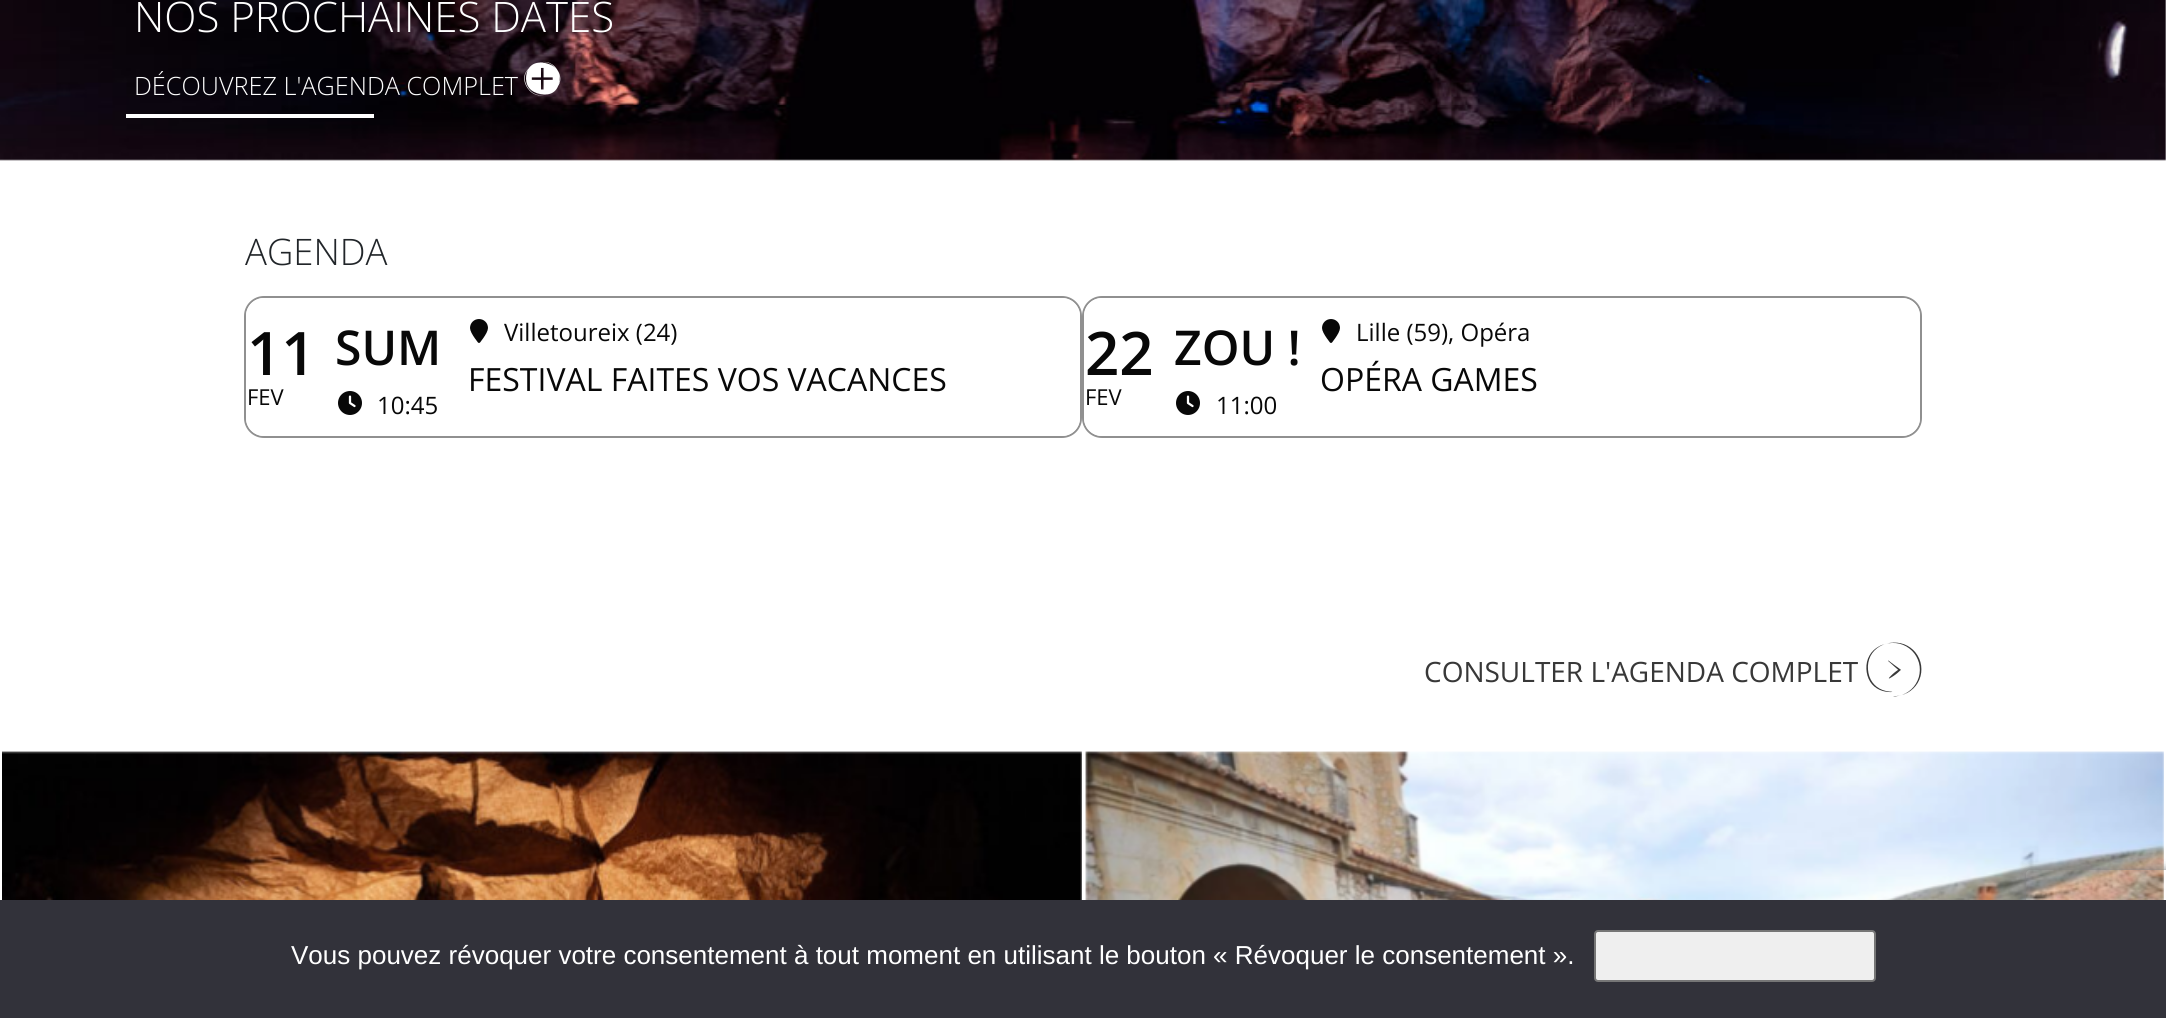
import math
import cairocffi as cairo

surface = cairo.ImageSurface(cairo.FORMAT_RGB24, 2166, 1018)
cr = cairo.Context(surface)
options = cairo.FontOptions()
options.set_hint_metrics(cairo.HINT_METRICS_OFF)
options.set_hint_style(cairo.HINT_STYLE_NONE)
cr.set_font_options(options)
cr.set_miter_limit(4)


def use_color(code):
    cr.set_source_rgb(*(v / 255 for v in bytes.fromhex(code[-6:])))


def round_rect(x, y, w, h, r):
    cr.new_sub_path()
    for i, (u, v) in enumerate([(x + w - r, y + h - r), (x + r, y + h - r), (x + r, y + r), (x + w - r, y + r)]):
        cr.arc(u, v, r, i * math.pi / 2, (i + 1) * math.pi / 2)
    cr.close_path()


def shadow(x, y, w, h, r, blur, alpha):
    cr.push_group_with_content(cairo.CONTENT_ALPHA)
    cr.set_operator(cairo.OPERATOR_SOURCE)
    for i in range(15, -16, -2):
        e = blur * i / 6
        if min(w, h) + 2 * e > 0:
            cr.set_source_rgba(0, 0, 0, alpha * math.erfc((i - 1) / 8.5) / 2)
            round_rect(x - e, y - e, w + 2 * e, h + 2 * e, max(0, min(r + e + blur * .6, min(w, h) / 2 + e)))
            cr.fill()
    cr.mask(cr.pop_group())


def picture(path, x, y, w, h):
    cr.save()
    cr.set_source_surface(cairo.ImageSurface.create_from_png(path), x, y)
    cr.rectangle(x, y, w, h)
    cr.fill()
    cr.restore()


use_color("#ffffff")
cr.paint()
picture("img1.png", 0, 0, 2166, 161)
cr.select_font_face("Open Sans Light")
cr.set_font_size(42)
use_color("#ffffff")
cr.move_to(134, 32)
cr.show_text("NOS PROCHAINES DATES")
cr.set_font_size(25.25)
cr.move_to(134, 95)
cr.show_text("DÉCOUVREZ L'AGENDA COMPLET")
picture("img2.png", 524, 61, 37, 35)
cr.rectangle(126, 114, 248, 4)
cr.fill()
cr.set_font_size(36.5)
use_color("#212529")
cr.move_to(245, 265)
cr.show_text("AGENDA")
round_rect(245, 297, 836, 140, 19)
use_color("#909090")
cr.stroke()
use_color("#ffffff")
round_rect(246, 298, 834, 138, 18)
cr.fill()
cr.select_font_face("Open Sans SemiBold")
cr.set_font_size(60)
use_color("#080808")
cr.move_to(247, 375)
cr.show_text("11")
cr.select_font_face("Open Sans")
cr.set_font_size(22)
cr.move_to(247, 405)
cr.show_text("FEV")
cr.select_font_face("Open Sans SemiBold")
cr.set_font_size(48)
cr.move_to(335, 365)
cr.show_text("SUM")
picture("img3.png", 338, 391, 24, 24)
cr.select_font_face("Open Sans")
cr.set_font_size(24)
cr.move_to(377, 414)
cr.show_text("10:45")
picture("img4.png", 470, 319, 18, 24)
cr.move_to(504, 341)
cr.show_text("Villetoureix (24)")
cr.set_font_size(32)
cr.move_to(468, 391)
cr.show_text("FESTIVAL FAITES VOS VACANCES")
round_rect(1083, 297, 838, 140, 19)
use_color("#909090")
cr.stroke()
use_color("#ffffff")
round_rect(1084, 298, 836, 138, 18)
cr.fill()
cr.select_font_face("Open Sans SemiBold")
cr.set_font_size(60)
use_color("#080808")
cr.move_to(1085, 375)
cr.show_text("22")
cr.select_font_face("Open Sans")
cr.set_font_size(22)
cr.move_to(1085, 405)
cr.show_text("FEV")
cr.select_font_face("Open Sans SemiBold")
cr.set_font_size(48)
cr.move_to(1174, 365)
cr.show_text("ZOU !")
picture("img3.png", 1176, 391, 24, 24)
cr.select_font_face("Open Sans")
cr.set_font_size(24)
cr.move_to(1216, 414)
cr.show_text("11:00")
picture("img4.png", 1322, 319, 18, 24)
cr.move_to(1356, 341)
cr.show_text("Lille (59), Opéra")
cr.set_font_size(32)
cr.move_to(1320, 391)
cr.show_text("OPÉRA GAMES")
cr.set_font_size(28)
use_color("#383838")
cr.move_to(1424, 682)
cr.show_text("CONSULTER L'AGENDA COMPLET")
picture("img5.png", 1866, 642, 56, 55)
picture("img6.png", 2, 751, 1080, 149)
picture("img7.png", 1085, 751, 1079, 149)
cr.save()
cr.set_fill_rule(cairo.FILL_RULE_EVEN_ODD)
cr.new_path()
cr.move_to(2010, 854)
cr.line_to(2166, 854)
cr.line_to(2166, 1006)
cr.line_to(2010, 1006)
cr.close_path()
cr.move_to(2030, 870)
cr.line_to(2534, 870)
cr.curve_to(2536, 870, 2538, 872, 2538, 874)
cr.line_to(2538, 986)
cr.curve_to(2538, 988, 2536, 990, 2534, 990)
cr.line_to(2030, 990)
cr.curve_to(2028, 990, 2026, 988, 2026, 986)
cr.line_to(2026, 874)
cr.curve_to(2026, 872, 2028, 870, 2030, 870)
cr.close_path()
cr.clip()
use_color("#808080")
shadow(2026, 870, 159, 120, 4, 5, 1)
cr.restore()
use_color("#32323a")
cr.rectangle(0, 900, 2166, 118)
cr.fill()
cr.select_font_face("Liberation Sans")
cr.set_font_size(26)
use_color("#ffffff")
cr.move_to(291, 964)
cr.show_text("Vous pouvez révoquer votre consentement à tout moment en utilisant le bouton « Révoquer le consentement ».")
use_color("#efefef")
round_rect(1595, 931, 280, 50, 3)
cr.fill_preserve()
use_color("#767676")
cr.stroke()
surface.write_to_png("result.png")
